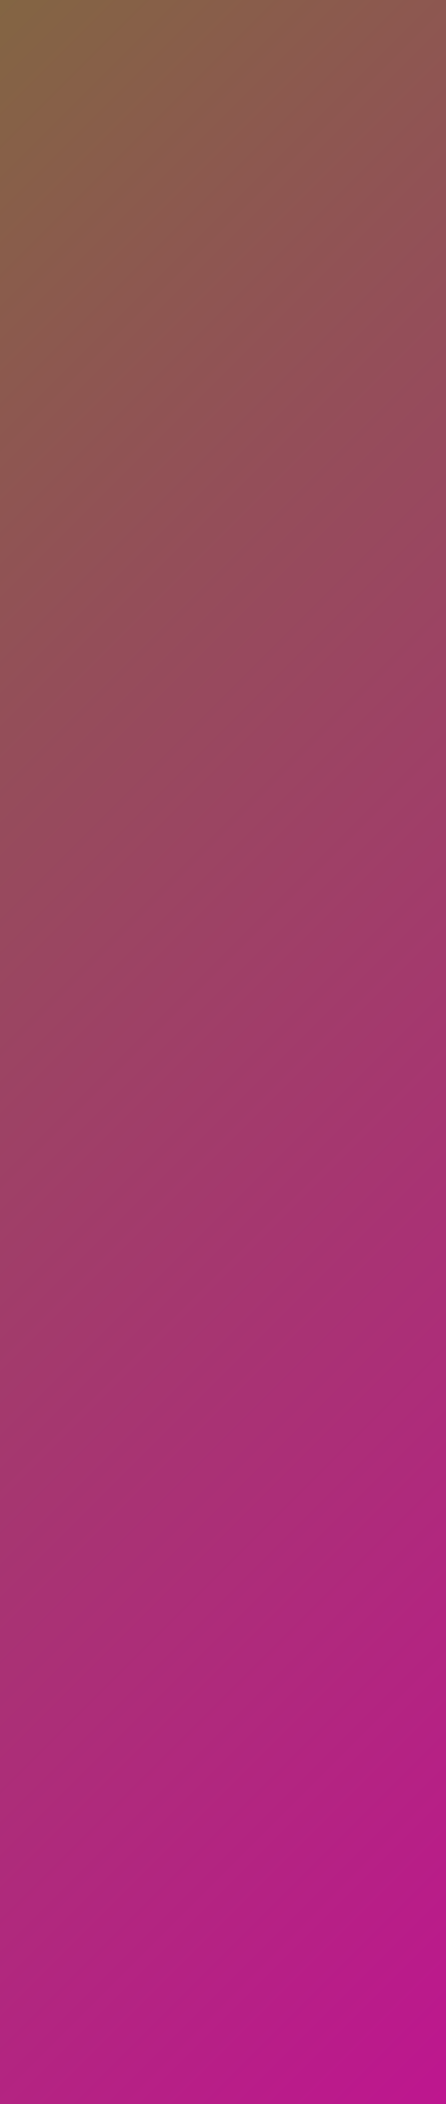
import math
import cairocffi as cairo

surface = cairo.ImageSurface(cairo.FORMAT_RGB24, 446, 2104)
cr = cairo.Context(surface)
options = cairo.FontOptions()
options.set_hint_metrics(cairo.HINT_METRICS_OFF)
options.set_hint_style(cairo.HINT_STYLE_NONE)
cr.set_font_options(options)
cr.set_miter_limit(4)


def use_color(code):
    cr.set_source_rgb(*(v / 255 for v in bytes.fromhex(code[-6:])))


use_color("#ffffff")
cr.paint()
gradient = cairo.LinearGradient(-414, 415, 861, 1690)
gradient.add_color_stop_rgba(0, 0.514, 0.396, 0.263, 1)
gradient.add_color_stop_rgba(1, 0.745, 0.086, 0.561, 1)
cr.set_source(gradient)
cr.rectangle(0, 0, 446, 2104)
cr.fill()
surface.write_to_png("result.png")
